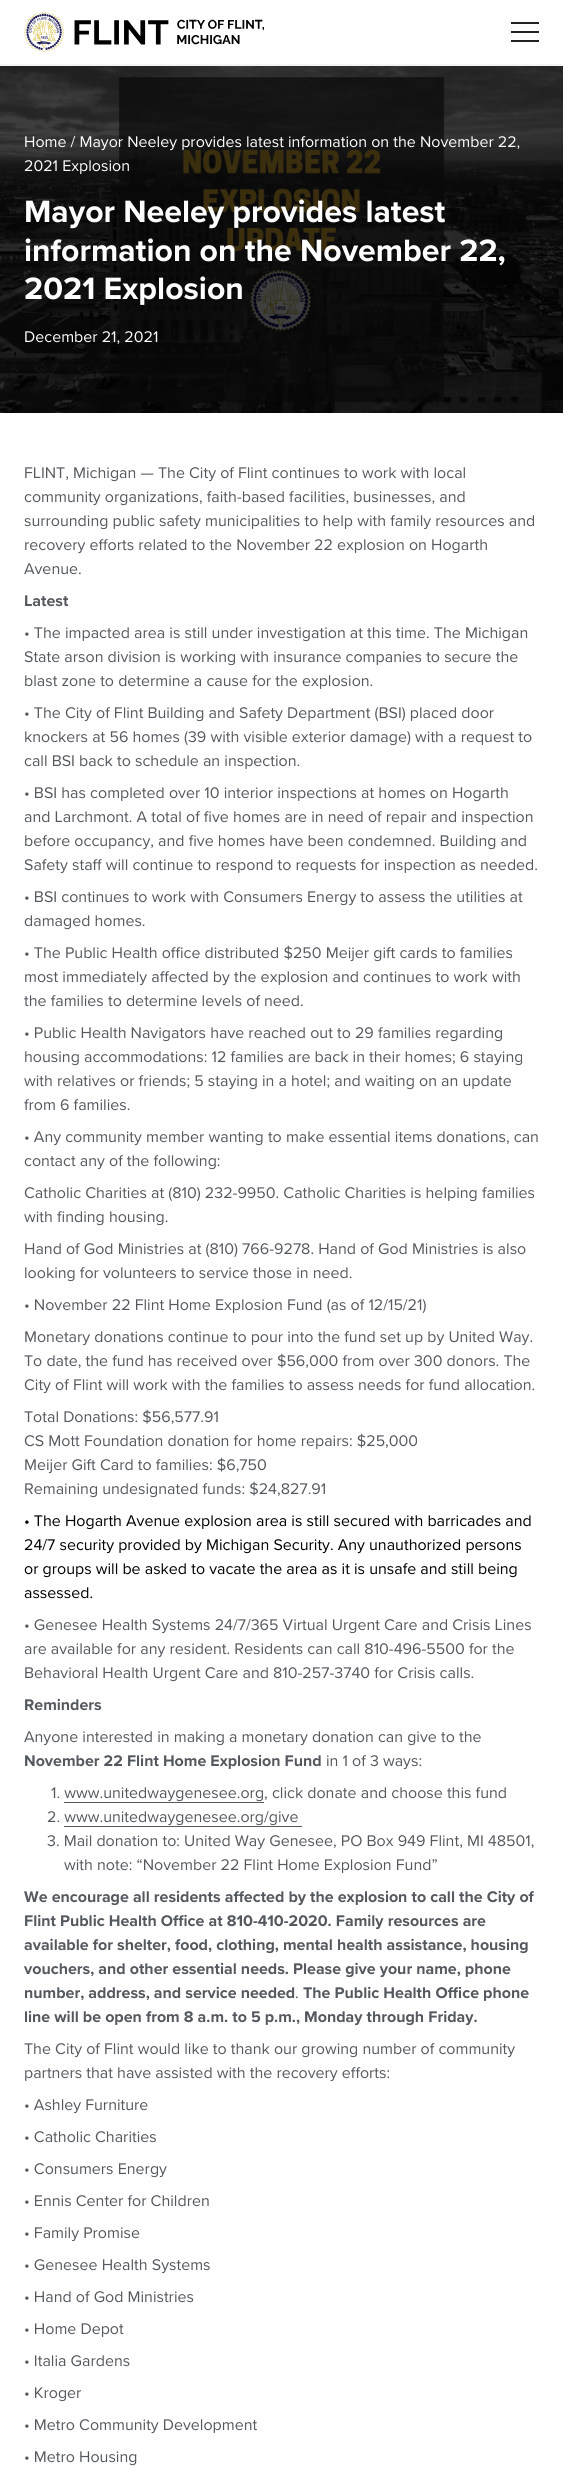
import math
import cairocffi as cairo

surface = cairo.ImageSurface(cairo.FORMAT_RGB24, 563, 2482)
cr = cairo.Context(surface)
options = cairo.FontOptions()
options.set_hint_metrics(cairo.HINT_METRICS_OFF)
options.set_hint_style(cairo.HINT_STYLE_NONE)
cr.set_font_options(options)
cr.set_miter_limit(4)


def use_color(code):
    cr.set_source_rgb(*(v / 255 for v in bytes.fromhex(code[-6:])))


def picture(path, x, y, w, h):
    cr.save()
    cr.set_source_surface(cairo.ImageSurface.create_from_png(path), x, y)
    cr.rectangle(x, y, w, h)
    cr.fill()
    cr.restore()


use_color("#ffffff")
cr.paint()
use_color("#f4f4f4")
cr.rectangle(0, 64, 563, 2)
cr.fill()
picture("img1.png", 24, 12, 240, 40)
use_color("#222222")
cr.rectangle(511, 22, 28, 2)
cr.fill()
cr.rectangle(511, 31, 28, 2)
cr.fill()
cr.rectangle(511, 40, 28, 2)
cr.fill()
picture("img2.png", 0, 66, 563, 347)
cr.select_font_face("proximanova")
cr.set_font_size(16)
use_color("#ffffff")
cr.move_to(24, 147)
cr.show_text("Home / Mayor Neeley provides latest information on the November 22,")
cr.move_to(24, 171)
cr.show_text("2021 Explosion")
cr.select_font_face("proximanova", cairo.FONT_SLANT_NORMAL, cairo.FONT_WEIGHT_BOLD)
cr.set_font_size(32)
cr.move_to(24, 222)
cr.show_text("Mayor Neeley provides latest")
cr.move_to(24, 261)
cr.show_text("information on the November 22,")
cr.move_to(24, 299)
cr.show_text("2021 Explosion")
cr.select_font_face("proximanova")
cr.set_font_size(16)
cr.move_to(24, 342)
cr.show_text("December 21, 2021")
use_color("#54595f")
cr.move_to(24, 478)
cr.show_text("FLINT, Michigan — The City of Flint continues to work with local")
cr.move_to(24, 502)
cr.show_text("community organizations, faith-based facilities, businesses, and")
cr.move_to(24, 526)
cr.show_text("surrounding public safety municipalities to help with family resources and")
cr.move_to(24, 550)
cr.show_text("recovery efforts related to the November 22 explosion on Hogarth")
cr.move_to(24, 574)
cr.show_text("Avenue.")
cr.select_font_face("proximanova", cairo.FONT_SLANT_NORMAL, cairo.FONT_WEIGHT_BOLD)
cr.move_to(24, 606)
cr.show_text("Latest")
cr.select_font_face("proximanova")
cr.move_to(24, 638)
cr.show_text("• The impacted area is still under investigation at this time. The Michigan")
cr.move_to(24, 662)
cr.show_text("State arson division is working with insurance companies to secure the")
cr.move_to(24, 686)
cr.show_text("blast zone to determine a cause for the explosion.")
cr.move_to(24, 718)
cr.show_text("• The City of Flint Building and Safety Department (BSI) placed door")
cr.move_to(24, 742)
cr.show_text("knockers at 56 homes (39 with visible exterior damage) with a request to")
cr.move_to(24, 766)
cr.show_text("call BSI back to schedule an inspection.")
cr.move_to(24, 798)
cr.show_text("• BSI has completed over 10 interior inspections at homes on Hogarth")
cr.move_to(24, 822)
cr.show_text("and Larchmont. A total of five homes are in need of repair and inspection")
cr.move_to(24, 846)
cr.show_text("before occupancy, and five homes have been condemned. Building and")
cr.move_to(24, 870)
cr.show_text("Safety staff will continue to respond to requests for inspection as needed.")
cr.move_to(24, 902)
cr.show_text("• BSI continues to work with Consumers Energy to assess the utilities at")
cr.move_to(24, 926)
cr.show_text("damaged homes.")
cr.move_to(24, 958)
cr.show_text("• The Public Health office distributed $250 Meijer gift cards to families")
cr.move_to(24, 982)
cr.show_text("most immediately affected by the explosion and continues to work with")
cr.move_to(24, 1006)
cr.show_text("the families to determine levels of need.")
cr.move_to(24, 1038)
cr.show_text("• Public Health Navigators have reached out to 29 families regarding")
cr.move_to(24, 1062)
cr.show_text("housing accommodations: 12 families are back in their homes; 6 staying")
cr.move_to(24, 1086)
cr.show_text("with relatives or friends; 5 staying in a hotel; and waiting on an update")
cr.move_to(24, 1110)
cr.show_text("from 6 families.")
cr.move_to(24, 1142)
cr.show_text("• Any community member wanting to make essential items donations, can")
cr.move_to(24, 1166)
cr.show_text("contact any of the following:")
cr.move_to(24, 1198)
cr.show_text("Catholic Charities at (810) 232-9950. Catholic Charities is helping families")
cr.move_to(24, 1222)
cr.show_text("with finding housing.")
cr.move_to(24, 1254)
cr.show_text("Hand of God Ministries at (810) 766-9278. Hand of God Ministries is also")
cr.move_to(24, 1278)
cr.show_text("looking for volunteers to service those in need.")
cr.move_to(24, 1310)
cr.show_text("• November 22 Flint Home Explosion Fund (as of 12/15/21)")
cr.move_to(24, 1342)
cr.show_text("Monetary donations continue to pour into the fund set up by United Way.")
cr.move_to(24, 1366)
cr.show_text("To date, the fund has received over $56,000 from over 300 donors. The")
cr.move_to(24, 1390)
cr.show_text("City of Flint will work with the families to assess needs for fund allocation.")
cr.move_to(24, 1422)
cr.show_text("Total Donations: $56,577.91")
cr.move_to(24, 1446)
cr.show_text("CS Mott Foundation donation for home repairs: $25,000")
cr.move_to(24, 1470)
cr.show_text("Meijer Gift Card to families: $6,750")
cr.move_to(24, 1494)
cr.show_text("Remaining undesignated funds: $24,827.91")
use_color("#000000")
cr.move_to(24, 1526)
cr.show_text("• The Hogarth Avenue explosion area is still secured with barricades and")
cr.move_to(24, 1550)
cr.show_text("24/7 security provided by Michigan Security. Any unauthorized persons")
cr.move_to(24, 1574)
cr.show_text("or groups will be asked to vacate the area as it is unsafe and still being")
cr.move_to(24, 1598)
cr.show_text("assessed.")
use_color("#54595f")
cr.move_to(24, 1630)
cr.show_text("• Genesee Health Systems 24/7/365 Virtual Urgent Care and Crisis Lines")
cr.move_to(24, 1654)
cr.show_text("are available for any resident. Residents can call 810-496-5500 for the")
cr.move_to(24, 1678)
cr.show_text("Behavioral Health Urgent Care and 810-257-3740 for Crisis calls.")
cr.select_font_face("proximanova", cairo.FONT_SLANT_NORMAL, cairo.FONT_WEIGHT_BOLD)
cr.move_to(24, 1710)
cr.show_text("Reminders")
cr.select_font_face("proximanova")
cr.move_to(24, 1742)
cr.show_text("Anyone interested in making a monetary donation can give to the")
cr.select_font_face("proximanova", cairo.FONT_SLANT_NORMAL, cairo.FONT_WEIGHT_BOLD)
cr.move_to(24, 1766)
cr.show_text("November 22 Flint Home Explosion Fund")
cr.select_font_face("proximanova")
cr.move_to(326, 1766)
cr.show_text("in 1 of 3 ways:")
cr.move_to(51, 1798)
cr.show_text("1. www.unitedwaygenesee.org, click donate and choose this fund")
cr.rectangle(64, 1802, 200, 1)
cr.fill()
cr.move_to(47, 1822)
cr.show_text("2. www.unitedwaygenesee.org/give")
cr.rectangle(64, 1826, 238, 1)
cr.fill()
cr.move_to(47, 1846)
cr.show_text("3. Mail donation to: United Way Genesee, PO Box 949 Flint, MI 48501,")
cr.move_to(64, 1870)
cr.show_text("with note: “November 22 Flint Home Explosion Fund”")
cr.select_font_face("proximanova", cairo.FONT_SLANT_NORMAL, cairo.FONT_WEIGHT_BOLD)
cr.move_to(24, 1902)
cr.show_text("We encourage all residents affected by the explosion to call the City of")
cr.move_to(24, 1926)
cr.show_text("Flint Public Health Office at 810-410-2020. Family resources are")
cr.move_to(24, 1950)
cr.show_text("available for shelter, food, clothing, mental health assistance, housing")
cr.move_to(24, 1974)
cr.show_text("vouchers, and other essential needs. Please give your name, phone")
cr.move_to(24, 1998)
cr.show_text("number, address, and service needed")
cr.select_font_face("proximanova")
cr.move_to(295, 1998)
cr.show_text(".")
cr.select_font_face("proximanova", cairo.FONT_SLANT_NORMAL, cairo.FONT_WEIGHT_BOLD)
cr.move_to(303, 1998)
cr.show_text("The Public Health Office phone")
cr.move_to(24, 2022)
cr.show_text("line will be open from 8 a.m. to 5 p.m., Monday through Friday.")
cr.select_font_face("proximanova")
cr.move_to(24, 2054)
cr.show_text("The City of Flint would like to thank our growing number of community")
cr.move_to(24, 2078)
cr.show_text("partners that have assisted with the recovery efforts:")
cr.move_to(24, 2110)
cr.show_text("• Ashley Furniture")
cr.move_to(24, 2142)
cr.show_text("• Catholic Charities")
cr.move_to(24, 2174)
cr.show_text("• Consumers Energy")
cr.move_to(24, 2206)
cr.show_text("• Ennis Center for Children")
cr.move_to(24, 2238)
cr.show_text("• Family Promise")
cr.move_to(24, 2270)
cr.show_text("• Genesee Health Systems")
cr.move_to(24, 2302)
cr.show_text("• Hand of God Ministries")
cr.move_to(24, 2334)
cr.show_text("• Home Depot")
cr.move_to(24, 2366)
cr.show_text("• Italia Gardens")
cr.move_to(24, 2398)
cr.show_text("• Kroger")
cr.move_to(24, 2430)
cr.show_text("• Metro Community Development")
cr.move_to(24, 2462)
cr.show_text("• Metro Housing")
surface.write_to_png("result.png")
